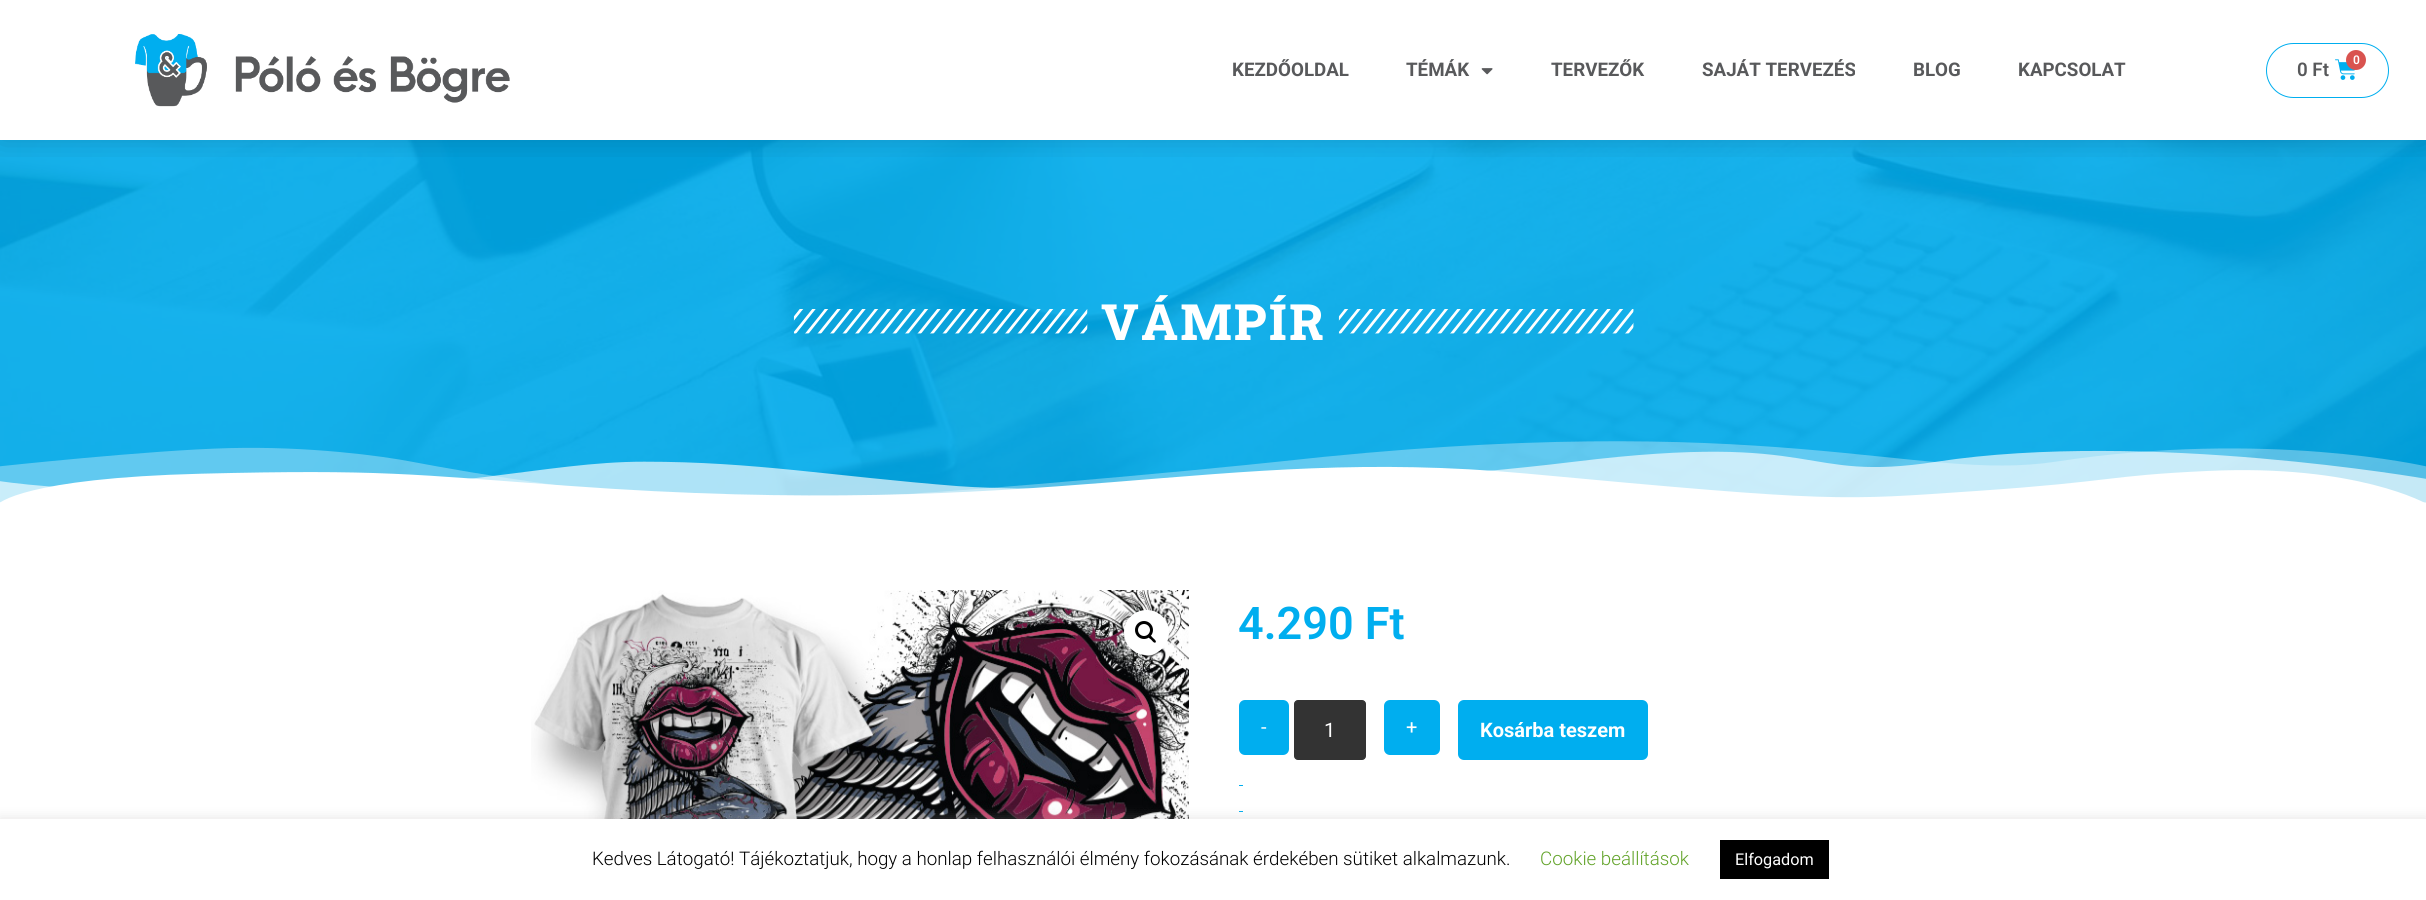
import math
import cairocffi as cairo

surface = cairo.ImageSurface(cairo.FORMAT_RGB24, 2426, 900)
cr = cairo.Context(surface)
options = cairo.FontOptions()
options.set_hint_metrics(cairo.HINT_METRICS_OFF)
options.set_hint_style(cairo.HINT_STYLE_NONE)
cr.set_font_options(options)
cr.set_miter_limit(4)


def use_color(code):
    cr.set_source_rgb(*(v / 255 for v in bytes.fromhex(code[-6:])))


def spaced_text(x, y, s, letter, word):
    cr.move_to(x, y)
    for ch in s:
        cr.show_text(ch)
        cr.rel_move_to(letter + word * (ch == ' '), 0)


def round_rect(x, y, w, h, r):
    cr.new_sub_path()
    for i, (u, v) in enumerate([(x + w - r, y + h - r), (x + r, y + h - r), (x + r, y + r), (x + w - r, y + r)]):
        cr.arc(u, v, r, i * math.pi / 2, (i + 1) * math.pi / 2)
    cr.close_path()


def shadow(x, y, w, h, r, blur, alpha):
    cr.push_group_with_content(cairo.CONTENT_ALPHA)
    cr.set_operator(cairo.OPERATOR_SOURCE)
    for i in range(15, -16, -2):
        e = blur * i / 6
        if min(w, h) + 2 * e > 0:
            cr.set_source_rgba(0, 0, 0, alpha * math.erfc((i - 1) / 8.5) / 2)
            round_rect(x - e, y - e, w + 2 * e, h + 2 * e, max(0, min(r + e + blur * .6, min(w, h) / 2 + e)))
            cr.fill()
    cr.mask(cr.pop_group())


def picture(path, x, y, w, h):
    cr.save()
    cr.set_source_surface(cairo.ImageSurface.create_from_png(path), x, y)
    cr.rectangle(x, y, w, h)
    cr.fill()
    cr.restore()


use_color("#ffffff")
cr.paint()
picture("img4.png", 0, 140, 2426, 363)
cr.save()
cr.rectangle(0, 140, 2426, 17)
cr.clip()
use_color("#000000")
shadow(0, 0, 2426, 140, 0, 15, 0.15)
cr.restore()
picture("img1.png", 135, 34, 375, 73)
cr.select_font_face("Roboto", cairo.FONT_SLANT_NORMAL, cairo.FONT_WEIGHT_BOLD)
cr.set_font_size(18.75)
use_color("#58595b")
cr.move_to(1232, 76)
cr.show_text("KEZDŐOLDAL")
cr.move_to(1406, 76)
cr.show_text("TÉMÁK")
picture("img2.png", 1481, 68, 12, 7)
cr.move_to(1551, 76)
cr.show_text("TERVEZŐK")
cr.move_to(1702, 76)
cr.show_text("SAJÁT TERVEZÉS")
cr.move_to(1913, 76)
cr.show_text("BLOG")
cr.move_to(2018, 76)
cr.show_text("KAPCSOLAT")
round_rect(2266.5, 43.5, 122, 54, 27)
use_color("#00aeef")
cr.set_line_width(1)
cr.stroke()
picture("img3.png", 2335, 59, 21, 21)
use_color("#d9534f")
cr.arc(2356, 60, 10, 0, 2 * math.pi)
cr.fill()
cr.select_font_face("Roboto SemiBold")
cr.set_font_size(12)
use_color("#ffffff")
cr.move_to(2353, 64)
cr.show_text("0")
cr.set_font_size(18.75)
use_color("#58595b")
cr.move_to(2297, 76)
cr.show_text("0 Ft")
picture("img5.png", 793, 309, 295, 25)
cr.select_font_face("Roboto Slab ExtraBold")
cr.set_font_size(50)
use_color("#ffffff")
spaced_text(1101, 340, "VÁMPÍR", 2.5, 0)
picture("img6.png", 1338, 309, 296, 25)
picture("img7.png", 0, 441, 2426, 62)
picture("img8.png", 531, 590, 658, 229)
cr.arc(1146.5, 632.5, 22.5, 0, 2 * math.pi)
cr.fill()
cr.arc(1144, 630, 7.5, 0, 2 * math.pi)
use_color("#000000")
cr.set_line_width(3)
cr.stroke()
cr.new_path()
cr.move_to(1148.5, 635)
cr.curve_to(1150, 634, 1152, 637, 1153, 638)
cr.curve_to(1153.5, 638.5, 1157, 641, 1155.5, 642.5)
cr.curve_to(1154, 643.5, 1152, 640.5, 1151, 639.5)
cr.curve_to(1150, 639, 1147, 636.5, 1148.5, 635)
cr.close_path()
cr.fill()
cr.select_font_face("Roboto SemiBold")
cr.set_font_size(45)
use_color("#00aeef")
cr.move_to(1238, 639)
cr.show_text("4.290 Ft")
round_rect(1240.5, 701.5, 47, 52, 4.5)
cr.fill_preserve()
cr.stroke()
cr.select_font_face("Roboto")
cr.set_font_size(20)
use_color("#ffffff")
cr.move_to(1261, 734)
cr.show_text("-")
use_color("#333333")
round_rect(1294.5, 700.5, 71, 59, 3.5)
cr.fill_preserve()
cr.set_line_width(1)
cr.stroke()
use_color("#ffffff")
cr.move_to(1324, 737)
cr.show_text("1")
use_color("#00aeef")
round_rect(1385.5, 701.5, 53, 52, 4.5)
cr.fill_preserve()
cr.set_line_width(3)
cr.stroke()
use_color("#ffffff")
cr.move_to(1406, 734)
cr.show_text("+")
use_color("#00aeef")
round_rect(1459.5, 701.5, 187, 57, 4.5)
cr.fill_preserve()
cr.stroke()
cr.select_font_face("Roboto", cairo.FONT_SLANT_NORMAL, cairo.FONT_WEIGHT_BOLD)
use_color("#ffffff")
cr.move_to(1480, 737)
cr.show_text("Kosárba teszem")
use_color("#00aeef")
cr.rectangle(1239, 785, 4, 1)
cr.fill()
cr.rectangle(1239, 811, 4, 1)
cr.fill()
use_color("#acabab")
shadow(0, 818, 2426, 81, 0, 6, 0.3)
use_color("#ffffff")
cr.rectangle(0, 819, 2426, 81)
cr.fill()
cr.select_font_face("Roboto Light")
cr.set_font_size(18.75)
use_color("#000000")
cr.move_to(592, 865)
cr.show_text("Kedves Látogató! Tájékoztatjuk, hogy a honlap felhasználói élmény fokozásának érdekében sütiket alkalmazunk.")
use_color("#62a329")
cr.move_to(1540, 865)
cr.show_text("Cookie beállítások")
use_color("#000000")
cr.rectangle(1720, 840, 109, 39)
cr.fill()
cr.select_font_face("Roboto")
cr.set_font_size(16.25)
use_color("#ffffff")
cr.move_to(1735, 865)
cr.show_text("Elfogadom")
surface.write_to_png("result.png")
